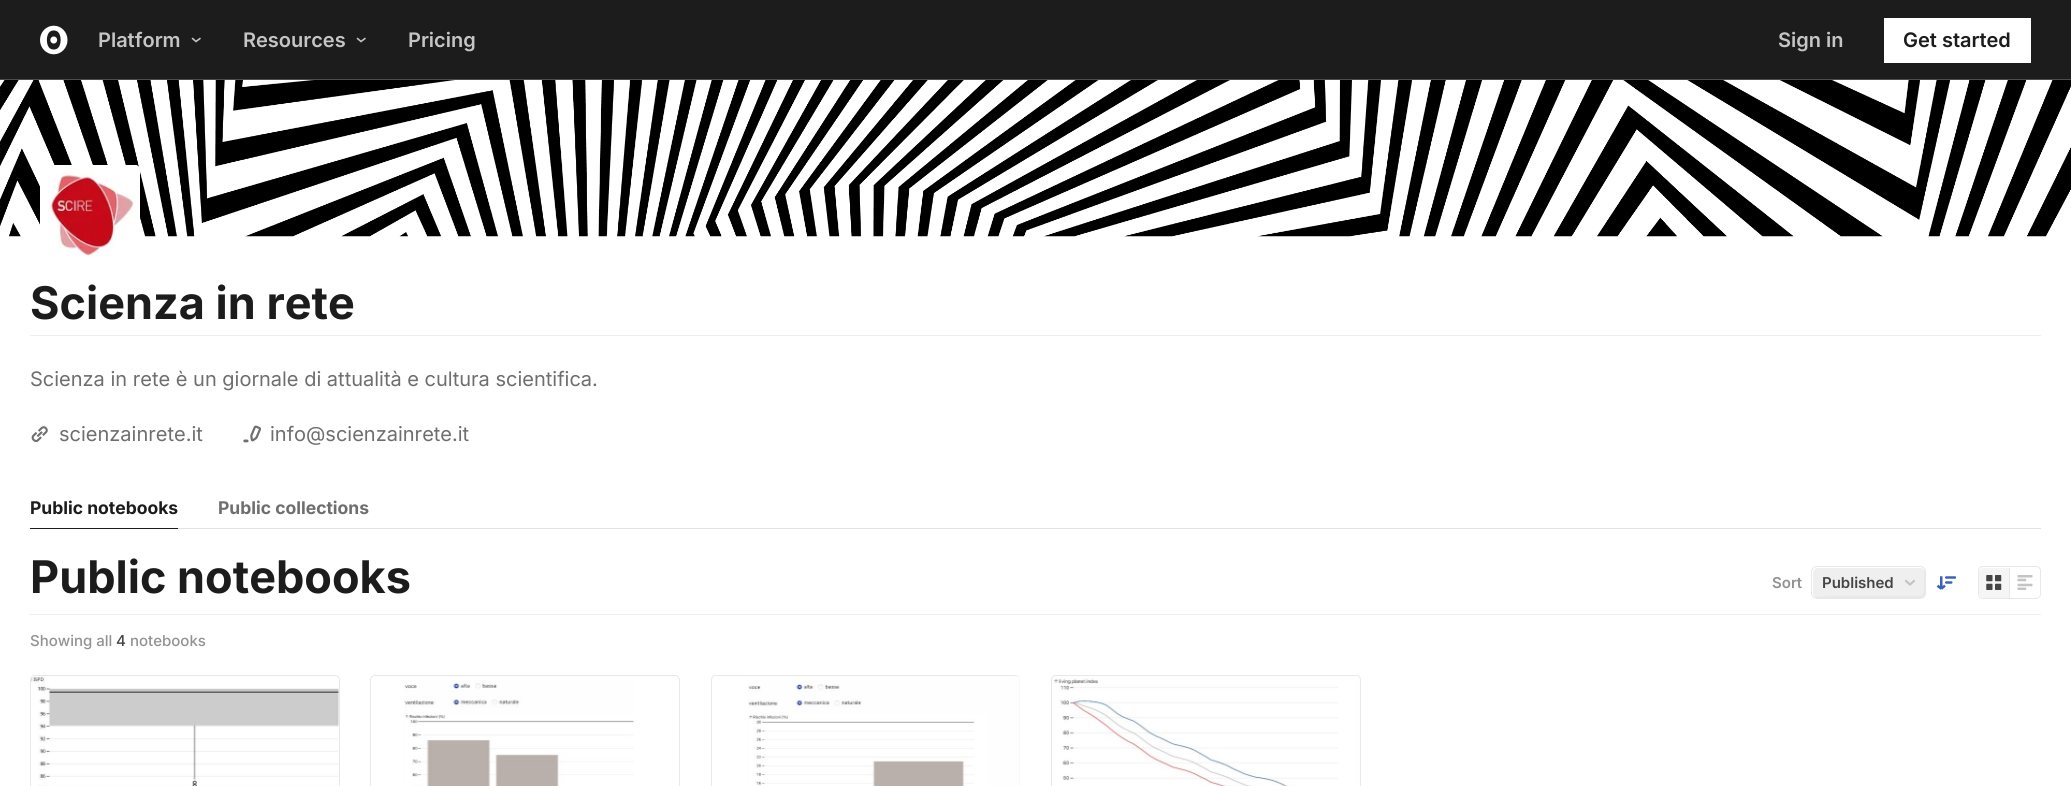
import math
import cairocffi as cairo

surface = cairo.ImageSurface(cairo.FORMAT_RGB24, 2071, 786)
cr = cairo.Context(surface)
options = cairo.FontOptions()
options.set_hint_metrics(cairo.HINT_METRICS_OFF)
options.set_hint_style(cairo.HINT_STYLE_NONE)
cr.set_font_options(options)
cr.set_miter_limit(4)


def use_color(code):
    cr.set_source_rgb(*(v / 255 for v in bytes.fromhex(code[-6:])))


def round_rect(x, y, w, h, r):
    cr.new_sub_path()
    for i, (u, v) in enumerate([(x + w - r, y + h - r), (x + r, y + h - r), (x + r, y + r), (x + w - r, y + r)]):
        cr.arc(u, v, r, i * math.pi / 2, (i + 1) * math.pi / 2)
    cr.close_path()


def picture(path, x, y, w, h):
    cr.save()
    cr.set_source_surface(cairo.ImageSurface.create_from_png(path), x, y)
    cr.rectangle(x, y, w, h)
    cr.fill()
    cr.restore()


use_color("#ffffff")
cr.paint()
use_color("#1c1c1c")
cr.rectangle(0, 0, 2071, 79)
cr.fill()
use_color("#4c4c4c")
cr.rectangle(0, 79, 2071, 1)
cr.fill()
picture("img1.png", 40, 25, 28, 30)
cr.select_font_face("Inter SemiBold")
cr.set_font_size(20)
use_color("#c5c5c5")
cr.move_to(98, 47)
cr.show_text("Platform")
cr.new_path()
cr.move_to(192.5, 38.5)
cr.line_to(196, 41.5)
cr.line_to(200, 38.5)
cr.set_line_width(1.6)
cr.set_line_cap(cairo.LINE_CAP_ROUND)
cr.stroke()
cr.move_to(243, 47)
cr.show_text("Resources")
cr.new_path()
cr.move_to(357.5, 38.5)
cr.line_to(361, 41.5)
cr.line_to(365, 38.5)
cr.stroke()
cr.move_to(408, 47)
cr.show_text("Pricing")
cr.move_to(1778, 47)
cr.show_text("Sign in")
use_color("#ffffff")
cr.rectangle(1884, 18, 147, 45)
cr.fill()
use_color("#1c1c1c")
cr.move_to(1903, 47)
cr.show_text("Get started")
picture("img2.png", 0, 80, 2071, 157)
use_color("#ffffff")
round_rect(40, 165, 100, 100, 5)
cr.fill()
picture("img3.png", 48, 165, 92, 92)
use_color("#efefef")
cr.rectangle(30, 335, 2011, 1)
cr.fill()
cr.select_font_face("Inter", cairo.FONT_SLANT_NORMAL, cairo.FONT_WEIGHT_BOLD)
cr.set_font_size(45)
use_color("#1c1c1c")
cr.move_to(30, 319)
cr.show_text("Scienza in rete")
cr.select_font_face("Inter")
cr.set_font_size(20)
use_color("#6e6e6e")
cr.move_to(30, 386)
cr.show_text("Scienza in rete è un giornale di attualità e cultura scientifica.")
picture("img4.png", 31, 426, 17, 16)
cr.move_to(59, 441)
cr.show_text("scienzainrete.it")
picture("img5.png", 243, 425, 18, 18)
cr.move_to(270, 441)
cr.show_text("info@scienzainrete.it")
use_color("#1c1c1c")
cr.rectangle(30, 528, 148, 1)
cr.fill()
cr.select_font_face("Inter", cairo.FONT_SLANT_NORMAL, cairo.FONT_WEIGHT_BOLD)
cr.set_font_size(17.5)
cr.move_to(30, 514)
cr.show_text("Public notebooks")
use_color("#6e6e6e")
cr.move_to(218, 514)
cr.show_text("Public collections")
use_color("#e2e2e2")
cr.rectangle(178, 528, 1863, 1)
cr.fill()
cr.set_font_size(45)
use_color("#1c1c1c")
cr.move_to(30, 593)
cr.show_text("Public notebooks")
cr.select_font_face("Inter SemiBold")
cr.set_font_size(15)
use_color("#929292")
cr.move_to(1772, 588)
cr.show_text("Sort")
round_rect(1811.5, 566.5, 114, 32, 5.5)
use_color("#e8e8e8")
cr.set_line_width(1)
cr.set_line_cap(cairo.LINE_CAP_BUTT)
cr.stroke()
use_color("#efefef")
round_rect(1813, 568, 112, 30, 5)
cr.fill()
cr.save()
cr.rectangle(1905, 573, 10, 20)
cr.clip()
cr.new_path()
cr.move_to(1906, 581)
cr.line_to(1910, 584.5)
cr.line_to(1914, 581)
use_color("#c4c4c4")
cr.set_line_width(2.2)
cr.set_line_cap(cairo.LINE_CAP_SQUARE)
cr.stroke()
cr.restore()
use_color("#e8e8e8")
cr.new_path()
cr.move_to(1814, 596)
cr.curve_to(1815, 597, 1816, 598, 1818, 598)
cr.line_to(1920, 598)
cr.curve_to(1923, 598, 1925, 596, 1925, 593)
cr.line_to(1925, 573)
cr.curve_to(1925, 572, 1925, 571, 1924, 570)
cr.line_to(1924, 584)
cr.curve_to(1924, 589, 1925, 596, 1919, 596)
cr.line_to(1833, 596)
cr.curve_to(1827, 596, 1820, 598, 1814, 596)
cr.close_path()
cr.fill()
use_color("#454545")
cr.move_to(1822, 588)
cr.show_text("Published")
picture("img6.png", 1936, 576, 20, 14)
round_rect(1978.5, 566.5, 62, 32, 4.5)
use_color("#e8e8e8")
cr.stroke()
use_color("#f5f5f5")
cr.new_path()
cr.move_to(1984, 568)
cr.line_to(2009, 568)
cr.line_to(2009, 598)
cr.line_to(1984, 598)
cr.curve_to(1981, 598, 1979, 596, 1979, 593)
cr.line_to(1979, 573)
cr.curve_to(1979, 570, 1981, 568, 1984, 568)
cr.close_path()
cr.fill()
picture("img7.png", 1986, 575, 16, 15)
use_color("#e8e8e8")
cr.rectangle(2009, 568, 1, 30)
cr.fill()
picture("img8.png", 2017, 575, 16, 15)
use_color("#efefef")
cr.rectangle(30, 614, 2011, 1)
cr.fill()
cr.select_font_face("Inter Medium")
use_color("#929292")
cr.move_to(30, 646)
cr.show_text("Showing all")
use_color("#454545")
cr.move_to(116, 646)
cr.show_text("4")
use_color("#929292")
cr.move_to(130, 646)
cr.show_text("notebooks")
round_rect(30.5, 675.5, 309, 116, 4.5)
use_color("#e8e8e8")
cr.stroke()
picture("img9.png", 31, 676, 308, 110)
round_rect(370.5, 675.5, 309, 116, 4.5)
cr.stroke()
picture("img10.png", 404, 680, 230, 106)
round_rect(711.5, 675.5, 308, 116, 4.5)
cr.stroke()
picture("img11.png", 748, 676, 272, 110)
round_rect(1051.5, 675.5, 309, 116, 4.5)
cr.stroke()
picture("img12.png", 1053, 678, 307, 108)
surface.write_to_png("result.png")
